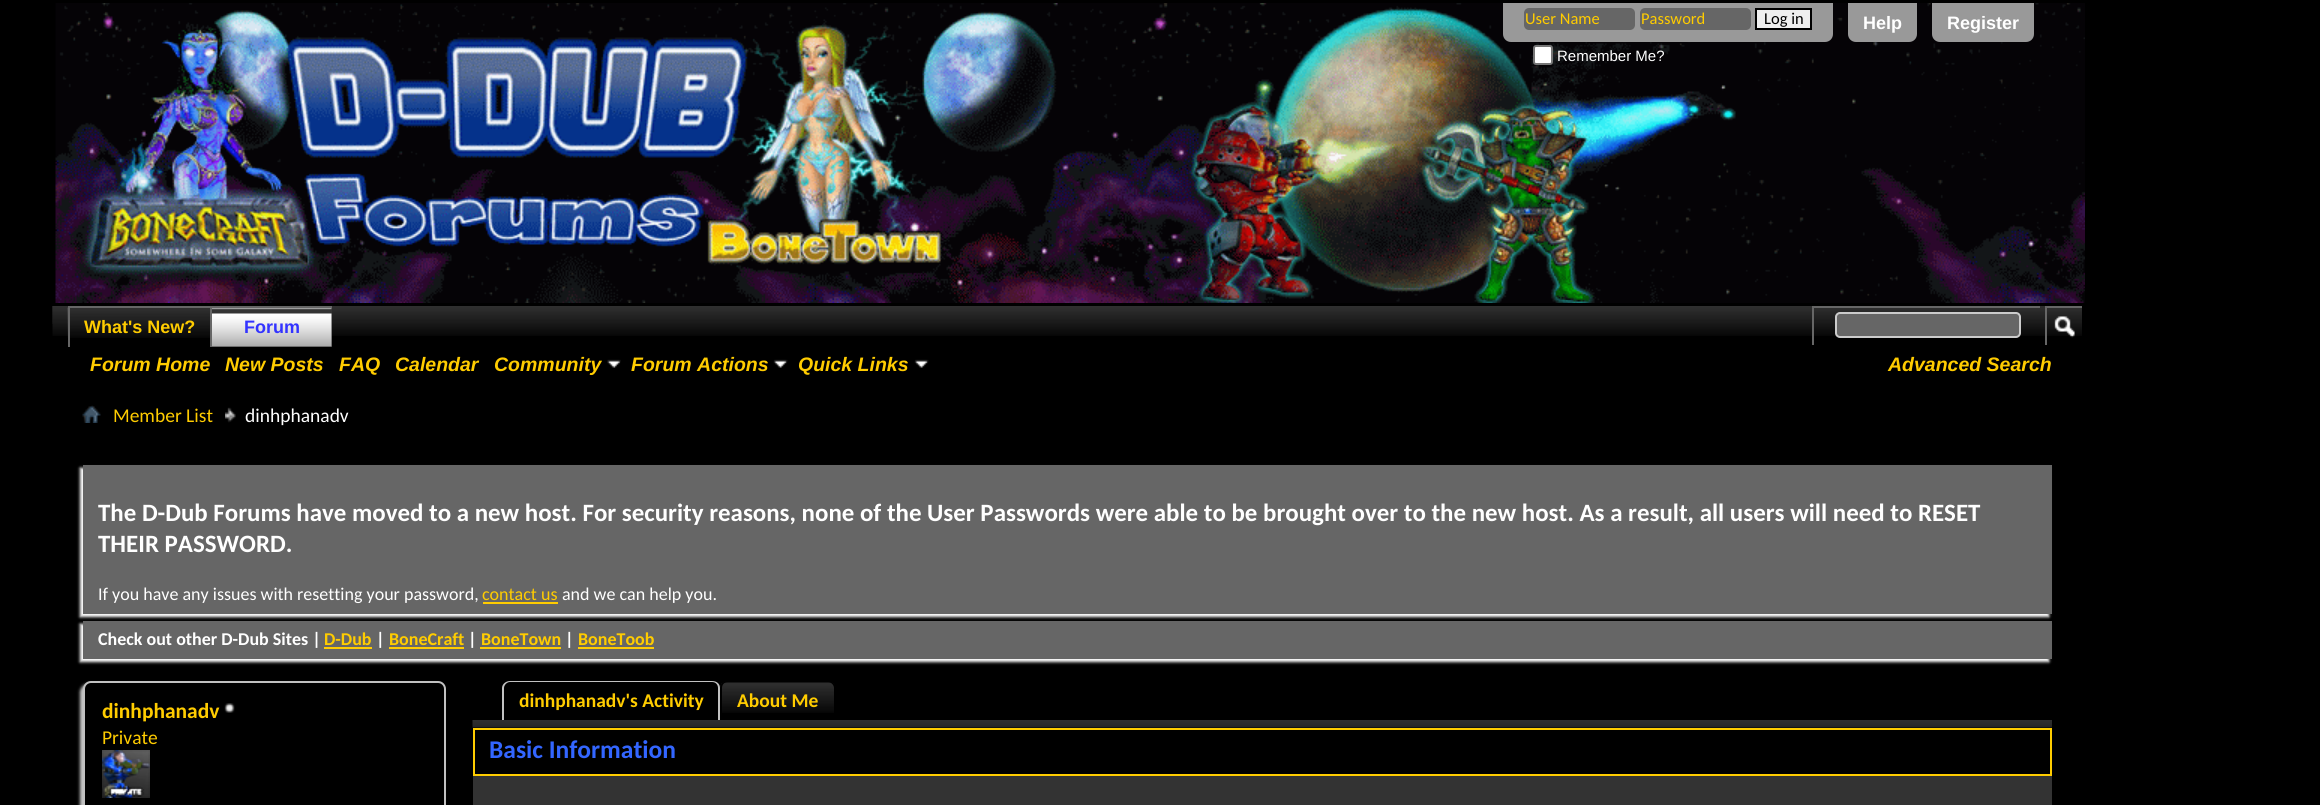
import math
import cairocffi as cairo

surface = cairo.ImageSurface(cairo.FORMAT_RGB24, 2320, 805)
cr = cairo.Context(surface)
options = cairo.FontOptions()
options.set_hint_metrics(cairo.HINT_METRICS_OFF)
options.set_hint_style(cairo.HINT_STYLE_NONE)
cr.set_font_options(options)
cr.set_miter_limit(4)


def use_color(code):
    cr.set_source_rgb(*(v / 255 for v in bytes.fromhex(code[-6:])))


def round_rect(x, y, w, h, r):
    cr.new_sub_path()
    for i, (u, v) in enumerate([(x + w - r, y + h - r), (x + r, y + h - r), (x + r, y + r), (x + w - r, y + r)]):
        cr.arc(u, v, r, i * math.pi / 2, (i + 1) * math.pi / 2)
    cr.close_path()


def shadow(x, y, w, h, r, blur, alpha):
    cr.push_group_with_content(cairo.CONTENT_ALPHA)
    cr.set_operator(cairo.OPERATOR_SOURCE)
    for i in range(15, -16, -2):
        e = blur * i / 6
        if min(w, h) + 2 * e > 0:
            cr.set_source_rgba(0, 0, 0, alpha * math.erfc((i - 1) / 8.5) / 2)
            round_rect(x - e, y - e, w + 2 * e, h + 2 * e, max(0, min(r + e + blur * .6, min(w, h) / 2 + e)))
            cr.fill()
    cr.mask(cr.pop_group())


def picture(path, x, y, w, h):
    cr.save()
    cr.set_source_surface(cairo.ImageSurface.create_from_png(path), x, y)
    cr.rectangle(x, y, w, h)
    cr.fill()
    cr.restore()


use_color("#000000")
cr.paint()
picture("img1.png", 55, 3, 2030, 300)
use_color("#999999")
cr.new_path()
cr.move_to(1503, 3)
cr.line_to(1833, 3)
cr.line_to(1833, 34)
cr.curve_to(1833, 38.5, 1829.5, 42, 1825, 42)
cr.line_to(1511, 42)
cr.curve_to(1506.5, 42, 1503, 38.5, 1503, 34)
cr.close_path()
cr.fill()
use_color("#666666")
round_rect(1524, 8, 111, 22, 5)
cr.fill()
cr.select_font_face("Carlito")
cr.set_font_size(16.5)
use_color("#ffcc00")
cr.move_to(1525, 24)
cr.show_text("User Name")
use_color("#666666")
round_rect(1640, 8, 111, 22, 5)
cr.fill()
use_color("#ffcc00")
cr.move_to(1641, 24)
cr.show_text("Password")
use_color("#efefef")
cr.rectangle(1756, 9, 55, 20)
cr.fill_preserve()
use_color("#000000")
cr.stroke()
cr.move_to(1764, 24)
cr.show_text("Log in")
use_color("#ffffff")
round_rect(1534, 46, 18, 18, 2)
cr.fill_preserve()
use_color("#767676")
cr.stroke()
cr.select_font_face("Liberation Sans")
cr.set_font_size(15)
use_color("#ffffff")
cr.move_to(1557, 61)
cr.show_text("Remember Me?")
use_color("#999999")
cr.new_path()
cr.move_to(1848, 3)
cr.line_to(1917, 3)
cr.line_to(1917, 34)
cr.curve_to(1917, 38.5, 1913.5, 42, 1909, 42)
cr.line_to(1856, 42)
cr.curve_to(1851.5, 42, 1848, 38.5, 1848, 34)
cr.close_path()
cr.fill()
cr.select_font_face("Liberation Sans", cairo.FONT_SLANT_NORMAL, cairo.FONT_WEIGHT_BOLD)
cr.set_font_size(18)
use_color("#ffffff")
cr.move_to(1863, 29)
cr.show_text("Help")
use_color("#999999")
cr.new_path()
cr.move_to(1932, 3)
cr.line_to(2034, 3)
cr.line_to(2034, 34)
cr.curve_to(2034, 38.5, 2030.5, 42, 2026, 42)
cr.line_to(1940, 42)
cr.curve_to(1935.5, 42, 1932, 38.5, 1932, 34)
cr.close_path()
cr.fill()
use_color("#ffffff")
cr.move_to(1947, 29)
cr.show_text("Register")
picture("img2.png", 52, 306, 1, 18)
picture("img3.png", 52, 306, 2030, 30)
use_color("#000000")
cr.rectangle(70, 308, 140, 28)
cr.fill()
picture("img4.png", 67, 307, 143, 31)
use_color("#666666")
cr.rectangle(68, 306, 264, 2)
cr.fill()
cr.rectangle(68, 306, 2, 41)
cr.fill()
use_color("#ffcc00")
cr.move_to(84, 333)
cr.show_text("What's New?")
use_color("#333333")
cr.rectangle(212, 308, 120, 39)
cr.fill()
picture("img5.png", 212, 308, 120, 39)
use_color("#666666")
cr.rectangle(210, 306, 2, 41)
cr.fill()
use_color("#3333ff")
cr.move_to(244, 333)
cr.show_text("Forum")
cr.select_font_face("Liberation Sans", cairo.FONT_SLANT_ITALIC, cairo.FONT_WEIGHT_BOLD)
cr.set_font_size(19.5)
use_color("#ffcc00")
cr.move_to(90, 371)
cr.show_text("Forum Home")
cr.move_to(225, 371)
cr.show_text("New Posts")
cr.move_to(339, 371)
cr.show_text("FAQ")
cr.move_to(395, 371)
cr.show_text("Calendar")
cr.move_to(494, 371)
cr.show_text("Community")
picture("img6.png", 607, 359, 14, 9)
cr.move_to(631, 371)
cr.show_text("Forum Actions")
picture("img7.png", 773, 359, 15, 9)
cr.move_to(798, 371)
cr.show_text("Quick Links")
picture("img7.png", 914, 359, 15, 9)
use_color("#666666")
cr.rectangle(1812, 306, 228, 2)
cr.fill()
cr.rectangle(1812, 306, 2, 39)
cr.fill()
round_rect(1836, 313, 184, 24, 4)
cr.fill_preserve()
use_color("#cccccc")
cr.stroke()
use_color("#666666")
cr.rectangle(2045, 306, 37, 2)
cr.fill()
cr.rectangle(2045, 306, 2, 39)
cr.fill()
picture("img8.png", 2054, 316, 21, 22)
use_color("#ffcc00")
cr.move_to(1888, 371)
cr.show_text("Advanced Search")
picture("img9.png", 82, 405, 19, 18)
picture("img10.png", 225, 407, 11, 16)
cr.select_font_face("Carlito")
cr.move_to(113, 422)
cr.show_text("Member List")
use_color("#ffffff")
cr.move_to(245, 422)
cr.show_text("dinhphanadv")
use_color("#ffffff")
shadow(80, 468, 1969, 149, 0, 1.5, 1)
use_color("#666666")
cr.rectangle(83, 465, 1969, 149)
cr.fill()
cr.select_font_face("Carlito", cairo.FONT_SLANT_NORMAL, cairo.FONT_WEIGHT_BOLD)
cr.set_font_size(24.93)
use_color("#ffffff")
cr.move_to(98, 521)
cr.show_text("The D-Dub Forums have moved to a new host. For security reasons, none of the User Passwords were able to be brought over to the new host. As a result, all users will need to RESET")
cr.move_to(98, 552)
cr.show_text("THEIR PASSWORD.")
cr.select_font_face("Carlito")
cr.set_font_size(18)
cr.move_to(98, 600)
cr.show_text("If you have any issues with resetting your password,")
use_color("#ffcc00")
cr.move_to(482, 600)
cr.show_text("contact us")
cr.rectangle(483, 602, 75, 2)
cr.fill()
use_color("#ffffff")
cr.move_to(562, 600)
cr.show_text("and we can help you.")
use_color("#ffffff")
shadow(80, 624, 1969, 38, 0, 1.5, 1)
use_color("#666666")
cr.rectangle(83, 621, 1969, 38)
cr.fill()
cr.select_font_face("Carlito", cairo.FONT_SLANT_NORMAL, cairo.FONT_WEIGHT_BOLD)
use_color("#ffffff")
cr.move_to(98, 645)
cr.show_text("Check out other D-Dub Sites |")
use_color("#ffcc00")
cr.move_to(324, 645)
cr.show_text("D-Dub")
cr.rectangle(324, 647, 48, 2)
cr.fill()
use_color("#ffffff")
cr.move_to(376, 645)
cr.show_text("|")
use_color("#ffcc00")
cr.move_to(389, 645)
cr.show_text("BoneCraft")
cr.rectangle(389, 647, 75, 2)
cr.fill()
use_color("#ffffff")
cr.move_to(468, 645)
cr.show_text("|")
use_color("#ffcc00")
cr.move_to(481, 645)
cr.show_text("BoneTown")
cr.rectangle(480, 647, 81, 2)
cr.fill()
use_color("#ffffff")
cr.move_to(565, 645)
cr.show_text("|")
use_color("#ffcc00")
cr.move_to(578, 645)
cr.show_text("BoneToob")
cr.rectangle(578, 647, 76, 2)
cr.fill()
use_color("#c8c8c8")
shadow(80, 684, 363, 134, 8, 1.5, 1)
use_color("#000000")
round_rect(84, 682, 361, 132, 7)
cr.fill_preserve()
use_color("#c1c1c1")
cr.stroke()
cr.set_font_size(21.5)
use_color("#ffcc00")
cr.move_to(102, 718)
cr.show_text("dinhphanadv")
picture("img11.png", 224, 703, 11, 10)
cr.select_font_face("Carlito")
cr.set_font_size(19.5)
cr.move_to(102, 744)
cr.show_text("Private")
picture("img12.png", 102, 750, 48, 48)
use_color("#c1c1c1")
cr.set_fill_rule(cairo.FILL_RULE_EVEN_ODD)
cr.new_path()
cr.move_to(510, 681)
cr.line_to(712, 681)
cr.curve_to(717, 681, 720, 684, 720, 688)
cr.line_to(720, 720)
cr.line_to(502, 720)
cr.line_to(502, 688)
cr.curve_to(502, 684, 506, 681, 510, 681)
cr.close_path()
cr.move_to(510, 682)
cr.line_to(712, 682)
cr.curve_to(716, 682, 718, 685, 718, 688)
cr.line_to(718, 720)
cr.line_to(504, 720)
cr.line_to(504, 688)
cr.curve_to(504, 685, 507, 682, 510, 682)
cr.close_path()
cr.fill()
cr.select_font_face("Carlito", cairo.FONT_SLANT_NORMAL, cairo.FONT_WEIGHT_BOLD)
use_color("#ffcc00")
cr.move_to(519, 707)
cr.show_text("dinhphanadv's Activity")
picture("img13.png", 720, 682, 116, 31)
use_color("#000000")
cr.new_path()
cr.move_to(728, 681)
cr.line_to(828, 681)
cr.curve_to(832, 681, 836, 684, 836, 688)
cr.line_to(836, 720)
cr.line_to(720, 720)
cr.line_to(720, 688)
cr.curve_to(720, 684, 723, 681, 728, 681)
cr.close_path()
cr.move_to(728, 682)
cr.line_to(828, 682)
cr.curve_to(831, 682, 834, 685, 834, 688)
cr.line_to(834, 720)
cr.line_to(722, 720)
cr.line_to(722, 688)
cr.curve_to(722, 685, 724, 682, 728, 682)
cr.close_path()
cr.fill()
use_color("#ffcc00")
cr.move_to(737, 707)
cr.show_text("About Me")
picture("img14.png", 472, 720, 1580, 8)
cr.rectangle(474, 729, 1577, 46)
cr.stroke()
cr.set_font_size(25.5)
use_color("#3366ff")
cr.move_to(489, 758)
cr.show_text("Basic Information")
use_color("#333333")
cr.rectangle(473, 776, 1579, 29)
cr.fill()
surface.write_to_png("result.png")
